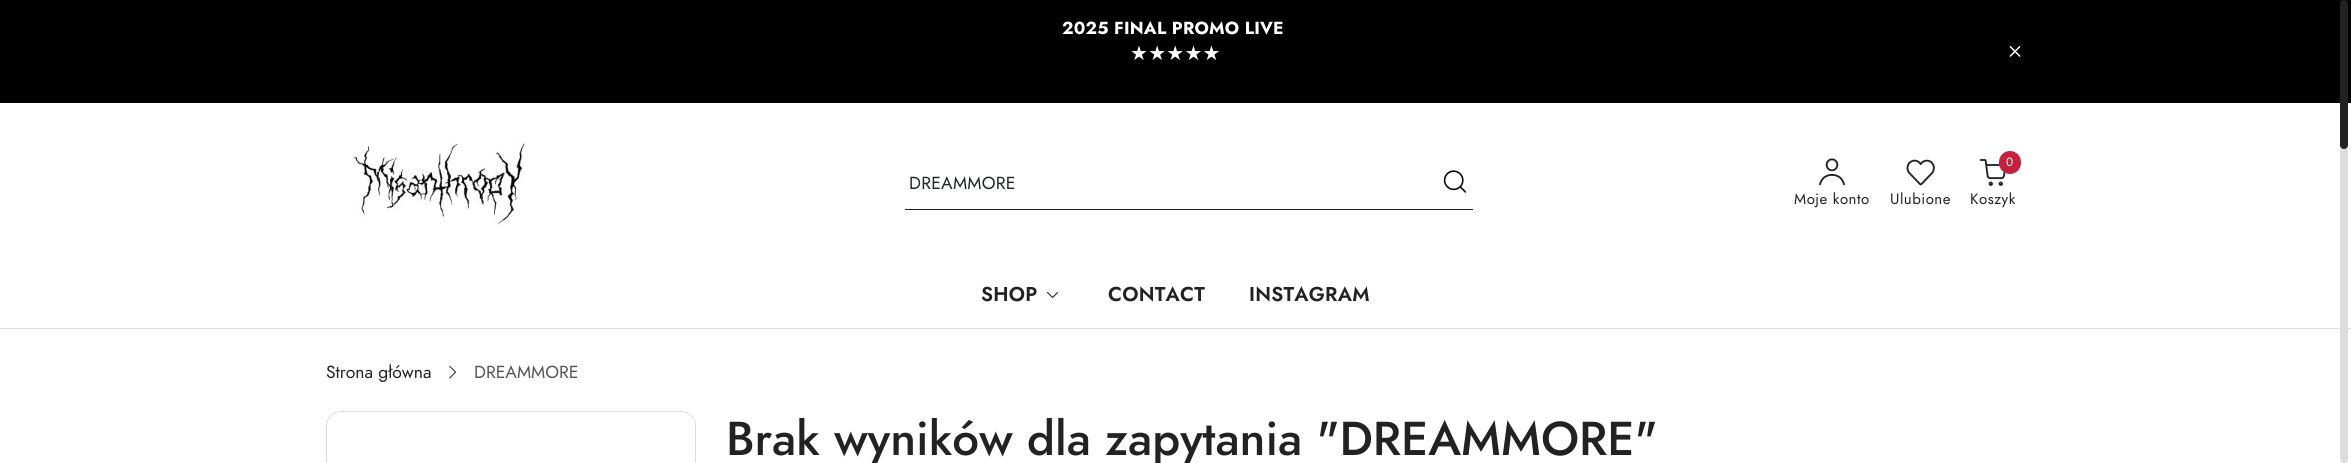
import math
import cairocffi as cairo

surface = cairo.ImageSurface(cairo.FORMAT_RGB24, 2351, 463)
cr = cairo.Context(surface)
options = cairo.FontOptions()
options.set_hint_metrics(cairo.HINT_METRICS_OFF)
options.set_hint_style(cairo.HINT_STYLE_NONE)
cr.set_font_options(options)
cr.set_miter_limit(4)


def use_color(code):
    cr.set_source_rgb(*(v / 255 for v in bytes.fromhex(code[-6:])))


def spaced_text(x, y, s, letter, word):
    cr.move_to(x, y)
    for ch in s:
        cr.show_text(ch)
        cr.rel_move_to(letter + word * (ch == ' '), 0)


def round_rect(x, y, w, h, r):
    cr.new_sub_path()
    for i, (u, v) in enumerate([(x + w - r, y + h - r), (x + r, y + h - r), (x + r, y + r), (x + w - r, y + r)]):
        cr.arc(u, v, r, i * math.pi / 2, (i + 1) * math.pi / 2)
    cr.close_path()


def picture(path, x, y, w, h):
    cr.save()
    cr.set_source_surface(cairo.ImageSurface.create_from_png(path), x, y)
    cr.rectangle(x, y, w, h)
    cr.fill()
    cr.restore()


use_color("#ffffff")
cr.paint()
use_color("#000000")
cr.rectangle(0, 0, 2351, 103)
cr.fill()
cr.select_font_face("Jost", cairo.FONT_SLANT_NORMAL, cairo.FONT_WEIGHT_BOLD)
cr.set_font_size(17.5)
use_color("#ffffff")
spaced_text(1062, 34, "2025 FINAL PROMO LIVE", 0.2, 0)
cr.select_font_face("DejaVu Sans")
cr.set_font_size(20)
spaced_text(1130, 60, "★★★★★", 0.2, 0)
picture("img1.png", 2009, 46, 12, 11)
picture("img2.png", 353, 140, 173, 88)
use_color("#222222")
cr.rectangle(905, 209, 568, 1)
cr.fill()
cr.select_font_face("Jost")
cr.set_font_size(17.5)
use_color("#212529")
spaced_text(909, 189, "DREAMMORE", 0.25, 0)
picture("img3.png", 1443, 170, 24, 23)
picture("img4.png", 1819, 158, 26, 28)
cr.set_font_size(15)
use_color("#222222")
spaced_text(1794, 204, "Moje konto", 0.5, 0)
picture("img5.png", 1906, 159, 29, 27)
spaced_text(1890, 204, "Ulubione", 0.5, 0)
picture("img6.png", 1979, 159, 27, 27)
use_color("#c5203d")
round_rect(1999, 151, 22, 23, 11)
cr.fill()
cr.set_font_size(12)
use_color("#ffffff")
cr.move_to(2006, 166)
cr.show_text("0")
cr.set_font_size(15)
use_color("#222222")
spaced_text(1970, 204, "Koszyk", 0.5, 0)
use_color("#dddddd")
cr.rectangle(0, 328, 2351, 1)
cr.fill()
cr.select_font_face("Jost SemiBold")
cr.set_font_size(20)
use_color("#222222")
spaced_text(981, 301, "SHOP", 0.25, 0)
picture("img7.png", 1047, 292, 11, 6)
spaced_text(1108, 301, "CONTACT", 0.25, 0)
spaced_text(1249, 301, "INSTAGRAM", 0.25, 0)
cr.select_font_face("Jost")
cr.set_font_size(17.5)
cr.move_to(326, 378)
cr.show_text("Strona główna")
picture("img8.png", 449, 365, 7, 14)
use_color("#555555")
cr.move_to(474, 378)
cr.show_text("DREAMMORE")
round_rect(326.5, 411.5, 369, 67, 14.5)
use_color("#dddddd")
cr.set_line_width(1)
cr.stroke()
cr.select_font_face("Jost Medium")
cr.set_font_size(47.5)
use_color("#222222")
cr.move_to(726, 455)
cr.show_text("Brak wyników dla zapytania \"DREAMMORE\"")
use_color("#dddddd")
round_rect(2340, 4, 8, 459, 4)
cr.fill()
use_color("#222222")
round_rect(2340, 0, 8, 149, 4)
cr.fill()
surface.write_to_png("result.png")
